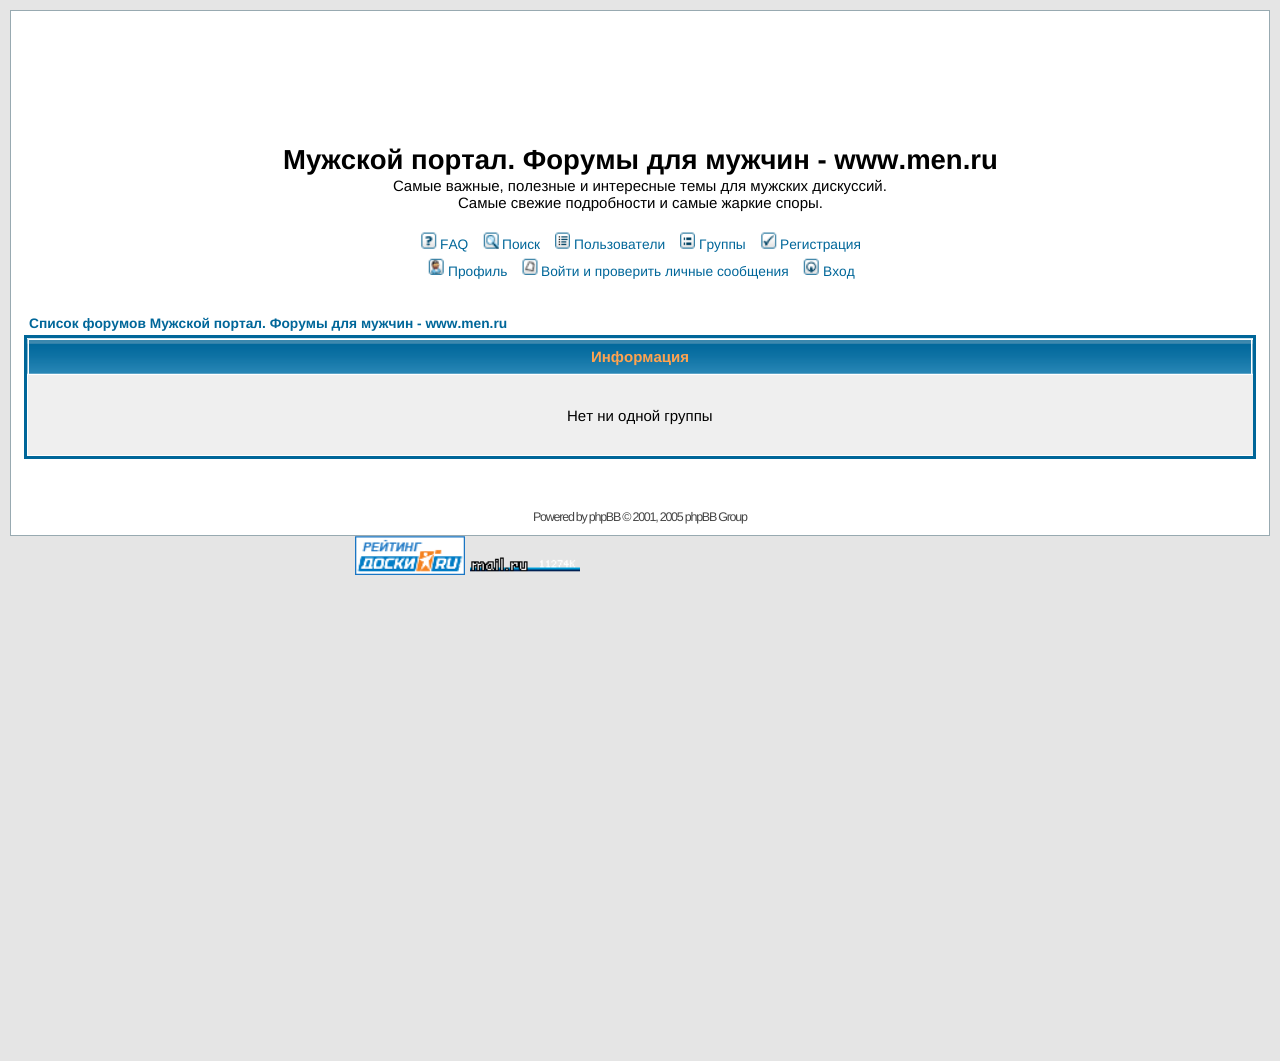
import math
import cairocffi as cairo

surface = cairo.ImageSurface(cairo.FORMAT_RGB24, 1280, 1061)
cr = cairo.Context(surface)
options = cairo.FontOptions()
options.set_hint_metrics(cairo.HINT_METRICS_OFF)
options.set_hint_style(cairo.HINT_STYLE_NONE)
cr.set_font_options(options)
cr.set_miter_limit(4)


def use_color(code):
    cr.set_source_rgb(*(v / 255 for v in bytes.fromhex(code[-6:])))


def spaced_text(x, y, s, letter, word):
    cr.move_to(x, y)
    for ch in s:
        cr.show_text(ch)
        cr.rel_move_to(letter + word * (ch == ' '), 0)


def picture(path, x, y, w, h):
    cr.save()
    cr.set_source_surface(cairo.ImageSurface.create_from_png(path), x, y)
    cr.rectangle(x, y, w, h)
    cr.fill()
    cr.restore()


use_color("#e5e5e5")
cr.paint()
use_color("#ffffff")
cr.rectangle(10.5, 10.5, 1259, 525)
cr.fill_preserve()
use_color("#98aab1")
cr.set_line_width(1)
cr.stroke()
cr.select_font_face("Liberation Sans", cairo.FONT_SLANT_NORMAL, cairo.FONT_WEIGHT_BOLD)
cr.set_font_size(27.5)
use_color("#000000")
cr.move_to(283, 169)
cr.show_text("Мужской портал. Форумы для мужчин - www.men.ru")
cr.select_font_face("Liberation Sans")
cr.set_font_size(15)
cr.move_to(393, 191)
cr.show_text("Самые важные, полезные и интересные темы для мужских дискуссий.")
cr.move_to(458, 208)
cr.show_text("Самые свежие подробности и самые жаркие споры.")
picture("img1.png", 421, 232, 16, 17)
cr.set_font_size(13.75)
use_color("#006699")
cr.move_to(440, 249)
cr.show_text("FAQ")
picture("img2.png", 483, 232, 16, 17)
cr.move_to(502, 249)
cr.show_text("Поиск")
picture("img3.png", 555, 232, 15, 17)
cr.move_to(574, 249)
cr.show_text("Пользователи")
picture("img4.png", 680, 232, 15, 17)
cr.move_to(699, 249)
cr.show_text("Группы")
picture("img5.png", 761, 232, 16, 17)
cr.move_to(780, 249)
cr.show_text("Регистрация")
picture("img6.png", 428, 258, 16, 17)
cr.move_to(448, 276)
cr.show_text("Профиль")
picture("img7.png", 522, 258, 16, 17)
cr.move_to(541, 276)
cr.show_text("Войти и проверить личные сообщения")
picture("img8.png", 803, 258, 16, 17)
cr.move_to(823, 276)
cr.show_text("Вход")
cr.select_font_face("Liberation Sans", cairo.FONT_SLANT_NORMAL, cairo.FONT_WEIGHT_BOLD)
cr.move_to(29, 328)
cr.show_text("Список форумов Мужской портал. Форумы для мужчин - www.men.ru")
cr.rectangle(25.5, 336.5, 1229, 121)
cr.set_line_width(3)
cr.stroke()
picture("img9.png", 27, 338, 1226, 36)
use_color("#ffffff")
cr.rectangle(28, 339, 1225, 1)
cr.fill()
cr.rectangle(1251, 339, 1, 35)
cr.fill()
cr.rectangle(28, 339, 1, 35)
cr.fill()
cr.set_font_size(15)
use_color("#ffa34f")
cr.move_to(591, 362)
cr.show_text("Информация")
use_color("#efefef")
cr.rectangle(28, 375, 1225, 80)
cr.fill()
cr.select_font_face("Liberation Sans")
use_color("#000000")
cr.move_to(567, 421)
cr.show_text("Нет ни одной группы")
cr.set_font_size(12.5)
use_color("#444444")
spaced_text(533, 521, "Powered by phpBB © 2001, 2005 phpBB Group", -1.25, 0)
picture("img10.png", 355, 536, 110, 39)
picture("img11.png", 470, 557, 110, 15)
surface.write_to_png("result.png")
